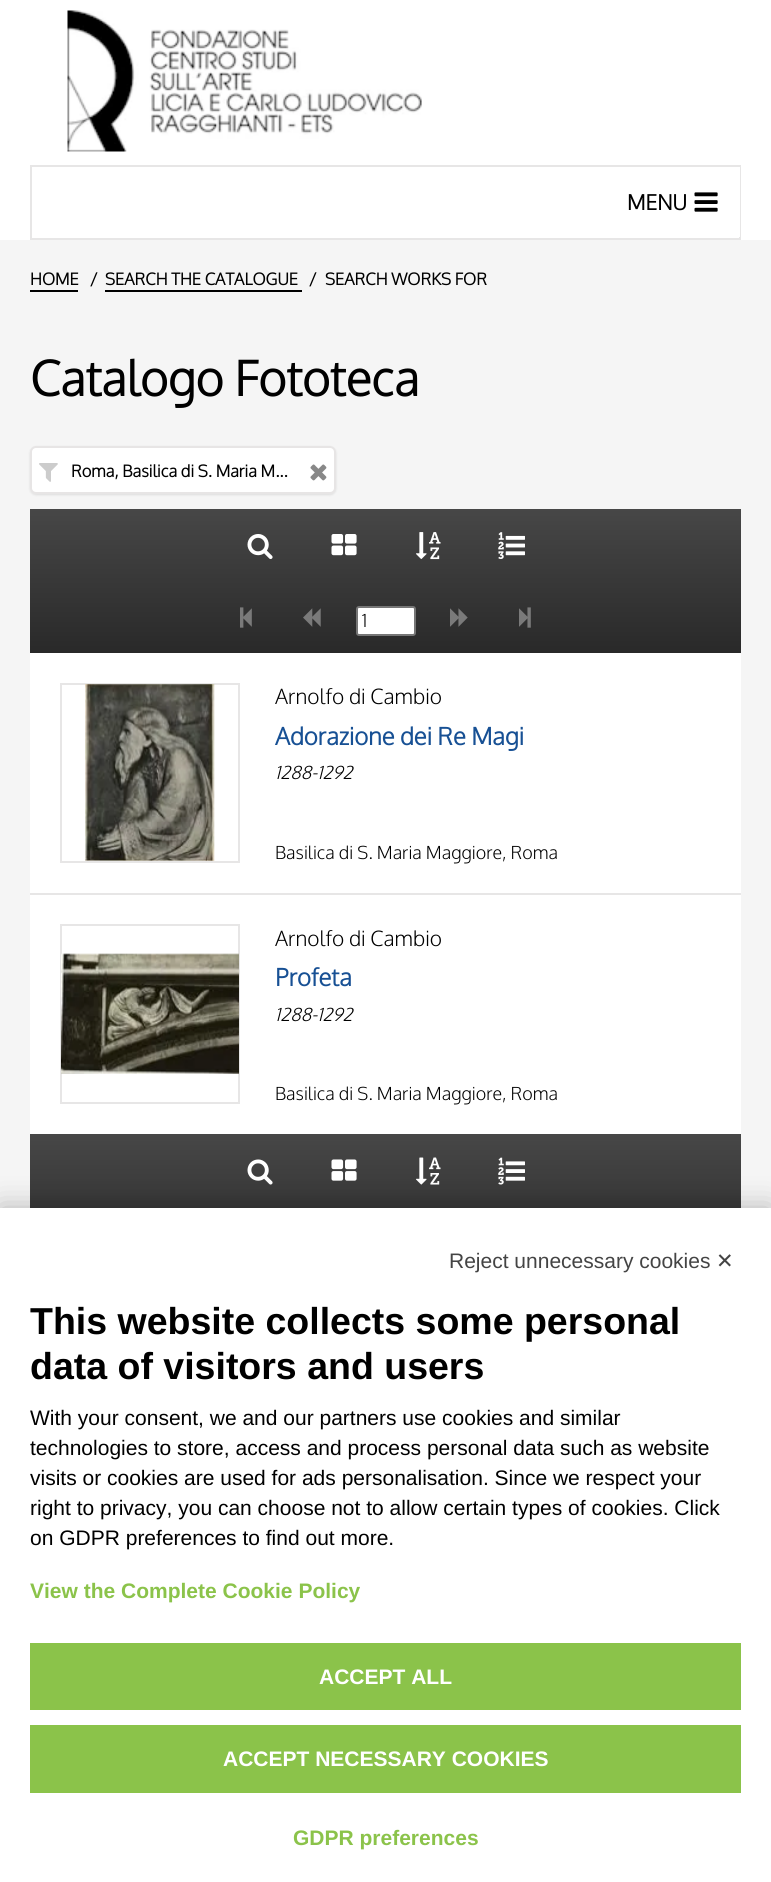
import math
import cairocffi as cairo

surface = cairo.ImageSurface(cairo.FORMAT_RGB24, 771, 1882)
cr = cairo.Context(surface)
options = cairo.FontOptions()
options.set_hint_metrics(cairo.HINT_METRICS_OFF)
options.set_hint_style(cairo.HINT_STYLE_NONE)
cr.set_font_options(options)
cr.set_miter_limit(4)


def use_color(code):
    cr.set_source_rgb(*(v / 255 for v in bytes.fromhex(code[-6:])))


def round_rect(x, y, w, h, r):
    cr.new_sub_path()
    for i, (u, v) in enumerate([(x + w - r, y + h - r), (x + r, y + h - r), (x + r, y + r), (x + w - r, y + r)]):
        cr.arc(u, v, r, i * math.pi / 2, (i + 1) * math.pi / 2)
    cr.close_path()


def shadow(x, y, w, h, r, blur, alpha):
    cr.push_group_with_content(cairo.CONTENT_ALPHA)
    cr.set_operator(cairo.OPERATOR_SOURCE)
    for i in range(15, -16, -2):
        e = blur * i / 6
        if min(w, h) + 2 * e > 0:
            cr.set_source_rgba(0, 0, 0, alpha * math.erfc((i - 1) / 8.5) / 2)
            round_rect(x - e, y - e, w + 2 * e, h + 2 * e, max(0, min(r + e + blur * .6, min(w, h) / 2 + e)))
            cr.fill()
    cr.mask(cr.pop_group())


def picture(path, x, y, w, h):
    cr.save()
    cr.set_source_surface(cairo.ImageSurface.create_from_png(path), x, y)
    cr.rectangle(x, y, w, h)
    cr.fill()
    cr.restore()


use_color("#ffffff")
cr.paint()
picture("img1.png", 67, 10, 355, 142)
cr.rectangle(31, 166, 709, 73)
use_color("#e7e6e6")
cr.stroke()
use_color("#ffffff")
cr.rectangle(739, 167, 1, 70)
cr.fill()
cr.select_font_face("Oxygen", cairo.FONT_SLANT_NORMAL, cairo.FONT_WEIGHT_BOLD)
cr.set_font_size(21)
use_color("#000000")
cr.move_to(627, 210)
cr.show_text("MENU")
picture("img2.png", 694, 192, 24, 20)
use_color("#f5f5f5")
cr.rectangle(0, 240, 771, 968)
cr.fill()
cr.set_font_size(16.5)
use_color("#000000")
cr.move_to(30, 285)
cr.show_text("HOME")
cr.rectangle(30, 290, 48, 2)
cr.fill()
cr.move_to(90, 285)
cr.show_text("/")
cr.move_to(105, 285)
cr.show_text("SEARCH THE CATALOGUE")
cr.rectangle(105, 290, 197, 2)
cr.fill()
cr.move_to(309, 285)
cr.show_text("/")
cr.move_to(325, 285)
cr.show_text("SEARCH WORKS FOR")
cr.set_font_size(48)
cr.move_to(30, 396)
cr.show_text("Catalogo Fototeca")
use_color("#000000")
shadow(30, 447, 306, 48, 6, 1, 0.1)
use_color("#ffffff")
round_rect(30, 446, 306, 48, 6)
cr.fill()
round_rect(31, 447, 304, 46, 5)
cr.set_source_rgba(0.725, 0.71, 0.71, 0.34)
cr.stroke()
picture("img3.png", 39, 463, 19, 19)
cr.set_font_size(16.5)
use_color("#000000")
cr.move_to(71, 477)
cr.show_text("Roma, Basilica di S. Maria M...")
picture("img4.png", 310, 464, 17, 17)
gradient = cairo.LinearGradient(386, 509, 386, 653)
gradient.add_color_stop_rgba(0, 0.278, 0.278, 0.278, 1)
gradient.add_color_stop_rgba(1, 0.161, 0.161, 0.161, 1)
cr.set_source(gradient)
cr.rectangle(30, 509, 711, 144)
cr.fill()
picture("img5.png", 247, 534, 26, 25)
picture("img6.png", 331, 534, 26, 22)
picture("img7.png", 416, 532, 25, 28)
picture("img8.png", 498, 532, 27, 27)
picture("img9.png", 240, 607, 12, 21)
picture("img10.png", 303, 608, 18, 19)
use_color("#ffffff")
round_rect(357, 607, 58, 28, 2)
cr.fill_preserve()
use_color("#767676")
cr.stroke()
cr.select_font_face("Oxygen Light")
cr.set_font_size(18)
use_color("#000000")
cr.move_to(362, 627)
cr.show_text("1")
picture("img11.png", 450, 608, 18, 19)
picture("img12.png", 519, 607, 12, 21)
use_color("#ffffff")
cr.rectangle(30, 653, 711, 481)
cr.fill()
use_color("#e7e6e6")
cr.rectangle(30, 893, 711, 2)
cr.fill()
cr.rectangle(61, 684, 178, 178)
cr.stroke()
picture("img13.png", 85, 684, 130, 177)
cr.set_font_size(21)
use_color("#000000")
cr.move_to(275, 704)
cr.show_text("Arnolfo di Cambio")
cr.select_font_face("Oxygen", cairo.FONT_SLANT_NORMAL, cairo.FONT_WEIGHT_BOLD)
cr.set_font_size(24)
use_color("#175094")
cr.move_to(275, 745)
cr.show_text("Adorazione dei Re Magi")
cr.select_font_face("Oxygen Light", cairo.FONT_SLANT_ITALIC)
cr.set_font_size(18)
use_color("#000000")
cr.move_to(275, 779)
cr.show_text("1288-1292")
cr.select_font_face("Oxygen Light")
cr.move_to(275, 859)
cr.show_text("Basilica di S. Maria Maggiore, Roma")
cr.rectangle(61, 925, 178, 178)
use_color("#e7e6e6")
cr.stroke()
picture("img14.png", 61, 953, 178, 121)
cr.set_font_size(21)
use_color("#000000")
cr.move_to(275, 946)
cr.show_text("Arnolfo di Cambio")
cr.select_font_face("Oxygen", cairo.FONT_SLANT_NORMAL, cairo.FONT_WEIGHT_BOLD)
cr.set_font_size(24)
use_color("#175094")
cr.move_to(275, 986)
cr.show_text("Profeta")
cr.select_font_face("Oxygen Light", cairo.FONT_SLANT_ITALIC)
cr.set_font_size(18)
use_color("#000000")
cr.move_to(275, 1021)
cr.show_text("1288-1292")
cr.select_font_face("Oxygen Light")
cr.move_to(275, 1100)
cr.show_text("Basilica di S. Maria Maggiore, Roma")
gradient = cairo.LinearGradient(386, 1134, 386, 1277)
gradient.add_color_stop_rgba(0, 0.278, 0.278, 0.278, 1)
gradient.add_color_stop_rgba(1, 0.161, 0.161, 0.161, 1)
cr.set_source(gradient)
cr.rectangle(30, 1134, 711, 74)
cr.fill()
picture("img15.png", 247, 1159, 26, 26)
picture("img16.png", 331, 1159, 26, 22)
picture("img17.png", 416, 1157, 25, 28)
picture("img18.png", 498, 1157, 27, 28)
use_color("#000000")
shadow(0, 1208, 771, 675, 0, 15, 0.27)
use_color("#ffffff")
cr.rectangle(0, 1208, 771, 674)
cr.fill()
cr.select_font_face("Liberation Sans")
cr.set_font_size(21)
use_color("#444444")
cr.move_to(449, 1268)
cr.show_text("Reject unnecessary cookies")
cr.select_font_face("DejaVu Sans")
cr.move_to(716, 1268)
cr.show_text("✕")
cr.select_font_face("Liberation Sans", cairo.FONT_SLANT_NORMAL, cairo.FONT_WEIGHT_BOLD)
cr.set_font_size(37.5)
use_color("#000000")
cr.move_to(30, 1334)
cr.show_text("This website collects some personal")
cr.move_to(30, 1379)
cr.show_text("data of visitors and users")
cr.select_font_face("Liberation Sans")
cr.set_font_size(21)
cr.move_to(30, 1425)
cr.show_text("With your consent, we and our partners use cookies and similar")
cr.move_to(30, 1455)
cr.show_text("technologies to store, access and process personal data such as website")
cr.move_to(30, 1485)
cr.show_text("visits or cookies are used for ads personalisation. Since we respect your")
cr.move_to(30, 1515)
cr.show_text("right to privacy, you can choose not to allow certain types of cookies. Click")
cr.move_to(30, 1545)
cr.show_text("on GDPR preferences to find out more.")
cr.select_font_face("Liberation Sans", cairo.FONT_SLANT_NORMAL, cairo.FONT_WEIGHT_BOLD)
use_color("#8bc34a")
cr.move_to(30, 1598)
cr.show_text("View the Complete Cookie Policy")
cr.rectangle(30, 1643, 711, 67)
cr.fill()
use_color("#ffffff")
cr.move_to(319, 1684)
cr.show_text("ACCEPT ALL")
use_color("#8bc34a")
cr.rectangle(30, 1725, 711, 68)
cr.fill()
use_color("#ffffff")
cr.move_to(223, 1766)
cr.show_text("ACCEPT NECESSARY COOKIES")
use_color("#8bc34a")
cr.move_to(293, 1845)
cr.show_text("GDPR preferences")
surface.write_to_png("result.png")
